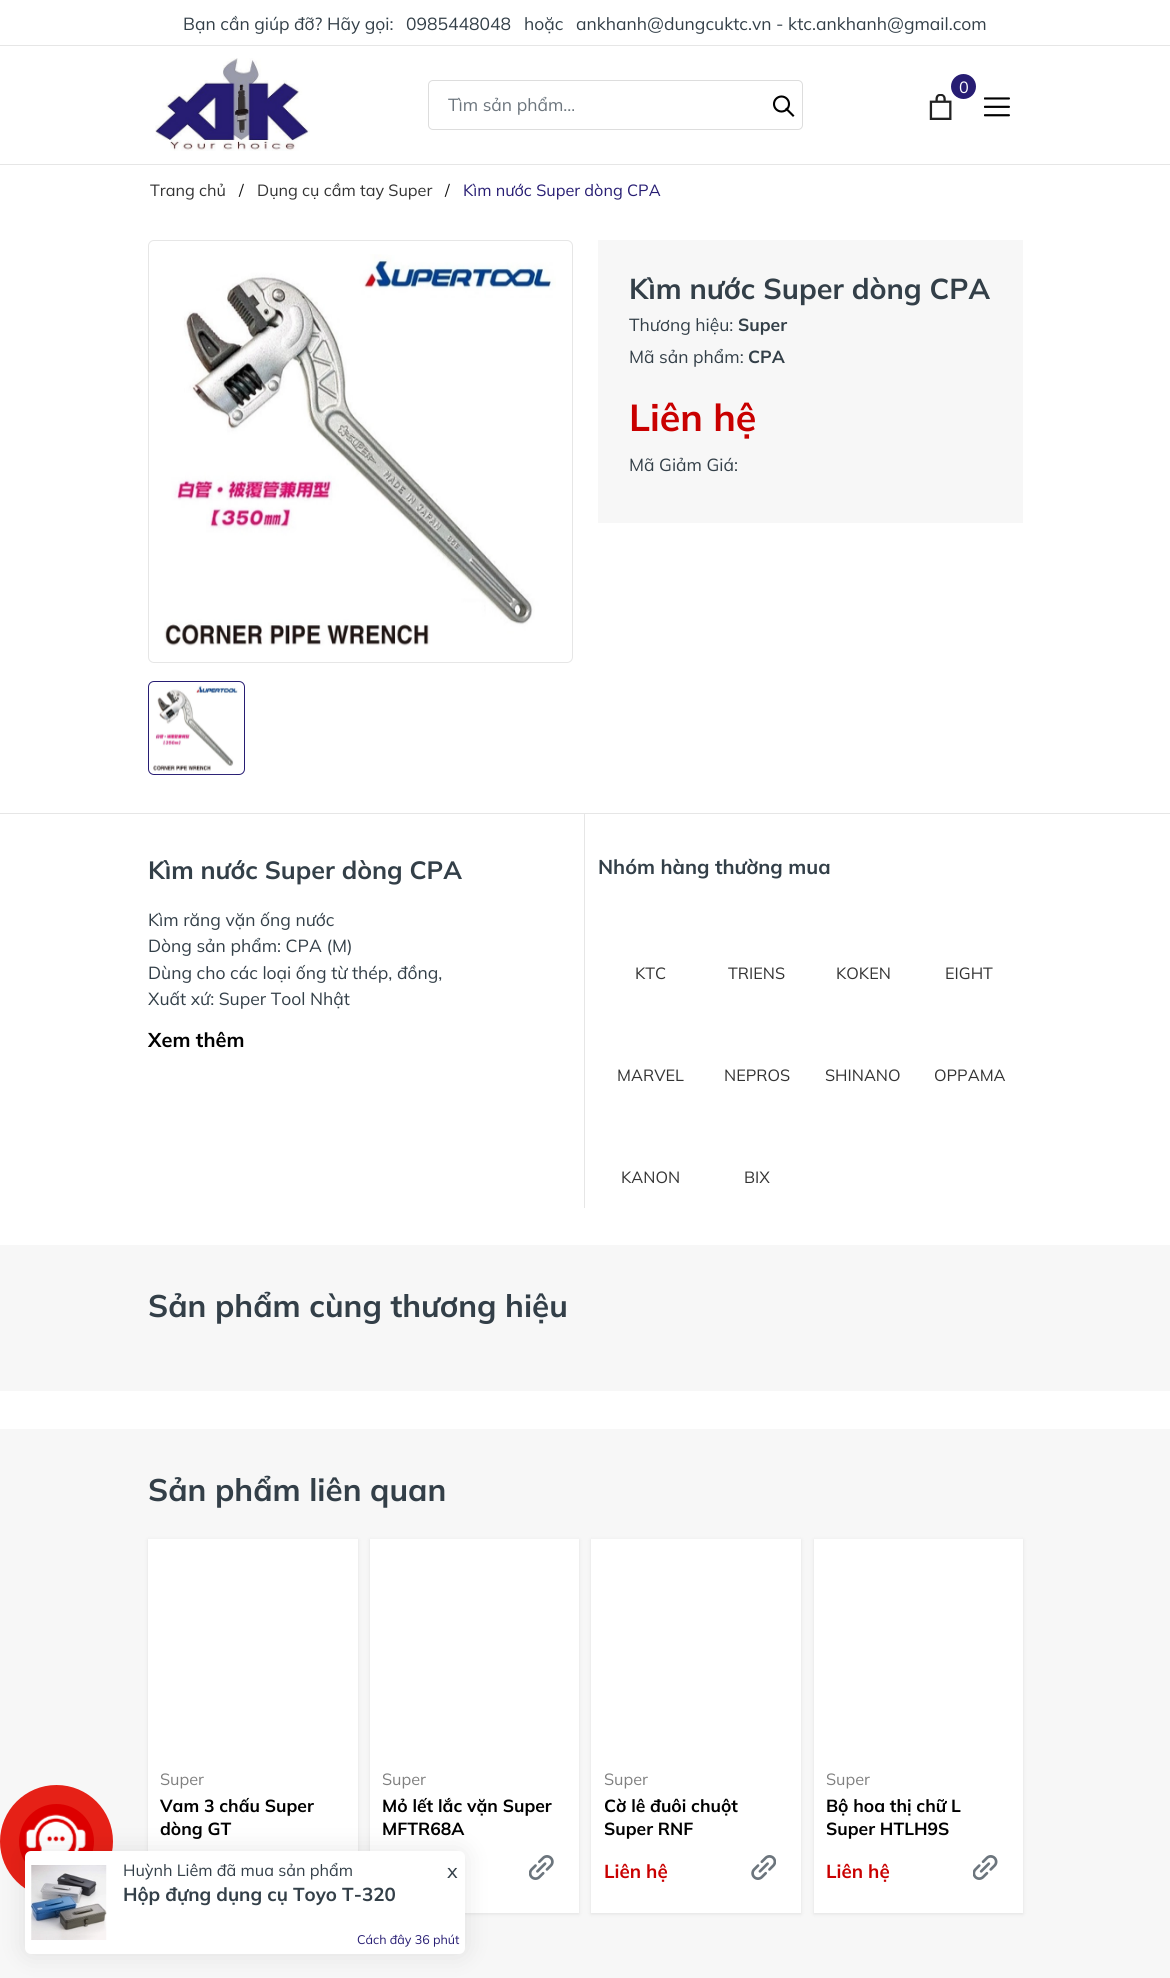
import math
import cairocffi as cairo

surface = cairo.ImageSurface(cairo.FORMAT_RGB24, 1170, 1978)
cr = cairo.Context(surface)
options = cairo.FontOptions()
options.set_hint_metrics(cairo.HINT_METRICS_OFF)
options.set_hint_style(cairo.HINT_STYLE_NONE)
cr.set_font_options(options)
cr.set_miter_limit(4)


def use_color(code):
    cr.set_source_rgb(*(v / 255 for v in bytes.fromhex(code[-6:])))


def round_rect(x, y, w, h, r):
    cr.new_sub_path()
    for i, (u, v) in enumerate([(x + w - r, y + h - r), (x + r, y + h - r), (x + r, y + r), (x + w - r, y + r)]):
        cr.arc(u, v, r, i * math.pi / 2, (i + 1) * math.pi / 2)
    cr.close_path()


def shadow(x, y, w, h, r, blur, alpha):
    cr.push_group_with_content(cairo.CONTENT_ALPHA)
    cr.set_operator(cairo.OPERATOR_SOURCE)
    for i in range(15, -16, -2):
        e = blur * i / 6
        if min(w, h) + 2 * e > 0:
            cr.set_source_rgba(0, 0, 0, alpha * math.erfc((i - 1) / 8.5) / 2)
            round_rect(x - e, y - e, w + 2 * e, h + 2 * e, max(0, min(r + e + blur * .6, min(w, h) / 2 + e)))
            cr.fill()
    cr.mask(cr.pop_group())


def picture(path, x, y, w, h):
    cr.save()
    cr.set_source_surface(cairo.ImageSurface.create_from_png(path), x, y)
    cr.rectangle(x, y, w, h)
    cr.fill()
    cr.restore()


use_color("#ffffff")
cr.paint()
use_color("#e6e6e6")
cr.rectangle(0, 45, 1170, 1)
cr.fill()
cr.select_font_face("Mulish")
cr.set_font_size(17.5)
use_color("#333f48")
cr.move_to(183, 30)
cr.show_text("Bạn cần giúp đỡ? Hãy gọi:")
cr.move_to(406, 30)
cr.show_text("0985448048")
cr.move_to(524, 30)
cr.show_text("hoặc")
cr.move_to(576, 30)
cr.show_text("ankhanh@dungcuktc.vn - ktc.ankhanh@gmail.com")
picture("img1.png", 155, 58, 155, 93)
picture("img2.png", 929, 94, 23, 26)
use_color("#271d73")
cr.arc(963.5, 86.5, 12.5, 0, 2 * math.pi)
cr.fill()
cr.set_font_size(16.25)
use_color("#ffffff")
cr.move_to(959, 93)
cr.show_text("0")
picture("img3.png", 984, 97, 26, 20)
round_rect(428.5, 80.5, 374, 49, 4.5)
use_color("#dddddd")
cr.set_line_width(1)
cr.stroke()
cr.set_font_size(17.5)
use_color("#6c757d")
cr.move_to(448, 111)
cr.show_text("Tìm sản phẩm...")
cr.new_path()
cr.move_to(793, 115.5)
cr.line_to(786.5, 109)
use_color("#000000")
cr.set_line_width(2.1)
cr.set_line_cap(cairo.LINE_CAP_SQUARE)
cr.stroke()
cr.arc(781.5, 104, 7.5, 0, 2 * math.pi)
cr.set_line_cap(cairo.LINE_CAP_BUTT)
cr.stroke()
use_color("#e6e6e6")
cr.rectangle(0, 164, 1170, 1)
cr.fill()
cr.set_font_size(16.25)
use_color("#333333")
cr.move_to(150, 196)
cr.show_text("Trang chủ")
use_color("#111111")
cr.move_to(239, 196)
cr.show_text("/")
use_color("#333333")
cr.move_to(257, 196)
cr.show_text("Dụng cụ cầm tay Super")
use_color("#111111")
cr.move_to(445, 196)
cr.show_text("/")
use_color("#271d73")
cr.move_to(463, 196)
cr.show_text("Kìm nước Super dòng CPA")
use_color("#f7f7f7")
cr.rectangle(0, 1429, 1170, 549)
cr.fill()
use_color("#e62117")
cr.arc(56.5, 1841.5, 55, 0, 2 * math.pi)
cr.fill_preserve()
cr.set_line_width(3)
cr.stroke()
use_color("#dd0000")
cr.arc(56.5, 1841.5, 37.5, 0, 2 * math.pi)
cr.fill()
picture("img4.png", 25, 1814, 61, 37)
round_rect(148.5, 240.5, 424, 422, 5.5)
use_color("#e6e6e6")
cr.set_line_width(1)
cr.stroke()
picture("img5.png", 164, 254, 392, 392)
round_rect(148.5, 681.5, 96, 93, 5.5)
use_color("#271d73")
cr.stroke()
picture("img6.png", 153, 685, 85, 90)
use_color("#f7f7f7")
cr.rectangle(598, 240, 425, 283)
cr.fill()
cr.select_font_face("Mulish", cairo.FONT_SLANT_NORMAL, cairo.FONT_WEIGHT_BOLD)
cr.set_font_size(28.75)
use_color("#333f48")
cr.move_to(629, 299)
cr.show_text("Kìm nước Super dòng CPA")
cr.select_font_face("Mulish")
cr.set_font_size(17.5)
cr.move_to(629, 331)
cr.show_text("Thương hiệu:")
cr.select_font_face("Mulish", cairo.FONT_SLANT_NORMAL, cairo.FONT_WEIGHT_BOLD)
cr.move_to(738, 331)
cr.show_text("Super")
cr.select_font_face("Mulish")
cr.move_to(629, 363)
cr.show_text("Mã sản phẩm:")
cr.select_font_face("Mulish", cairo.FONT_SLANT_NORMAL, cairo.FONT_WEIGHT_BOLD)
cr.move_to(748, 363)
cr.show_text("CPA")
cr.set_font_size(37.5)
use_color("#c90000")
cr.move_to(629, 431)
cr.show_text("Liên hệ")
cr.select_font_face("Mulish")
cr.set_font_size(17.5)
use_color("#333f48")
cr.move_to(629, 471)
cr.show_text("Mã Giảm Giá:")
use_color("#e6e6e6")
cr.rectangle(0, 813, 1170, 1)
cr.fill()
cr.rectangle(584, 814, 1, 394)
cr.fill()
cr.select_font_face("Mulish", cairo.FONT_SLANT_NORMAL, cairo.FONT_WEIGHT_BOLD)
cr.set_font_size(25)
use_color("#333f48")
cr.move_to(148, 879)
cr.show_text("Kìm nước Super dòng CPA")
cr.select_font_face("Mulish")
cr.set_font_size(17.5)
cr.move_to(148, 926)
cr.show_text("Kìm răng vặn ống nước")
cr.move_to(148, 952)
cr.show_text("Dòng sản phẩm: CPA (M)")
cr.move_to(148, 979)
cr.show_text("Dùng cho các loại ống từ thép, đồng,")
cr.move_to(148, 1005)
cr.show_text("Xuất xứ: Super Tool Nhật")
cr.select_font_face("Mulish", cairo.FONT_SLANT_NORMAL, cairo.FONT_WEIGHT_BOLD)
cr.set_font_size(20)
use_color("#000000")
cr.move_to(148, 1047)
cr.show_text("Xem thêm")
use_color("#333f48")
cr.move_to(598, 874)
cr.show_text("Nhóm hàng thường mua")
cr.select_font_face("Mulish")
cr.set_font_size(16.25)
use_color("#333333")
cr.move_to(635, 979)
cr.show_text("KTC")
cr.move_to(728, 979)
cr.show_text("TRIENS")
cr.move_to(836, 979)
cr.show_text("KOKEN")
cr.move_to(945, 979)
cr.show_text("EIGHT")
cr.move_to(617, 1081)
cr.show_text("MARVEL")
cr.move_to(724, 1081)
cr.show_text("NEPROS")
cr.move_to(825, 1081)
cr.show_text("SHINANO")
cr.move_to(934, 1081)
cr.show_text("OPPAMA")
cr.move_to(621, 1183)
cr.show_text("KANON")
cr.move_to(744, 1183)
cr.show_text("BIX")
use_color("#f7f7f7")
cr.rectangle(0, 1245, 1170, 146)
cr.fill()
cr.select_font_face("Mulish", cairo.FONT_SLANT_NORMAL, cairo.FONT_WEIGHT_BOLD)
cr.set_font_size(31.25)
use_color("#333f48")
cr.move_to(148, 1317)
cr.show_text("Sản phẩm cùng thương hiệu")
cr.move_to(148, 1501)
cr.show_text("Sản phẩm liên quan")
use_color("#000000")
shadow(148, 1540, 210, 374, 0, 2, 0.09)
use_color("#ffffff")
cr.rectangle(148, 1539, 210, 312)
cr.fill()
cr.select_font_face("Mulish")
cr.set_font_size(16.25)
use_color("#808080")
cr.move_to(160, 1785)
cr.show_text("Super")
cr.select_font_face("Mulish", cairo.FONT_SLANT_NORMAL, cairo.FONT_WEIGHT_BOLD)
cr.set_font_size(17.5)
use_color("#000000")
cr.move_to(160, 1812)
cr.show_text("Vam 3 chấu Super")
cr.move_to(160, 1835)
cr.show_text("dòng GT")
use_color("#000000")
shadow(370, 1540, 209, 374, 0, 2, 0.09)
use_color("#ffffff")
cr.rectangle(370, 1539, 209, 374)
cr.fill()
cr.select_font_face("Mulish")
cr.set_font_size(16.25)
use_color("#808080")
cr.move_to(382, 1785)
cr.show_text("Super")
cr.select_font_face("Mulish", cairo.FONT_SLANT_NORMAL, cairo.FONT_WEIGHT_BOLD)
cr.set_font_size(17.5)
use_color("#000000")
cr.move_to(382, 1812)
cr.show_text("Mỏ lết lắc vặn Super")
cr.move_to(382, 1835)
cr.show_text("MFTR68A")
picture("img7.png", 529, 1855, 25, 25)
use_color("#000000")
shadow(591, 1540, 210, 374, 0, 2, 0.09)
use_color("#ffffff")
cr.rectangle(591, 1539, 210, 374)
cr.fill()
cr.select_font_face("Mulish")
cr.set_font_size(16.25)
use_color("#808080")
cr.move_to(604, 1785)
cr.show_text("Super")
cr.select_font_face("Mulish", cairo.FONT_SLANT_NORMAL, cairo.FONT_WEIGHT_BOLD)
cr.set_font_size(17.5)
use_color("#000000")
cr.move_to(604, 1812)
cr.show_text("Cờ lê đuôi chuột")
cr.move_to(604, 1835)
cr.show_text("Super RNF")
cr.set_font_size(18.75)
use_color("#c90000")
cr.move_to(604, 1878)
cr.show_text("Liên hệ")
picture("img8.png", 751, 1855, 25, 25)
use_color("#000000")
shadow(814, 1540, 209, 374, 0, 2, 0.09)
use_color("#ffffff")
cr.rectangle(814, 1539, 209, 374)
cr.fill()
cr.select_font_face("Mulish")
cr.set_font_size(16.25)
use_color("#808080")
cr.move_to(826, 1785)
cr.show_text("Super")
cr.select_font_face("Mulish", cairo.FONT_SLANT_NORMAL, cairo.FONT_WEIGHT_BOLD)
cr.set_font_size(17.5)
use_color("#000000")
cr.move_to(826, 1812)
cr.show_text("Bộ hoa thị chữ L")
cr.move_to(826, 1835)
cr.show_text("Super HTLH9S")
cr.set_font_size(18.75)
use_color("#c90000")
cr.move_to(826, 1878)
cr.show_text("Liên hệ")
picture("img9.png", 973, 1855, 25, 25)
use_color("#000000")
shadow(25, 1851, 440, 103, 6, 12.5, 0.1)
use_color("#ffffff")
round_rect(25, 1851, 440, 103, 6)
cr.fill()
picture("img10.png", 31, 1865, 76, 75)
cr.select_font_face("Mulish")
cr.set_font_size(16.25)
use_color("#333f48")
cr.move_to(123, 1876)
cr.show_text("Huỳnh Liêm đã mua sản phẩm")
cr.select_font_face("Mulish", cairo.FONT_SLANT_NORMAL, cairo.FONT_WEIGHT_BOLD)
cr.set_font_size(18.75)
cr.move_to(123, 1901)
cr.show_text("Hộp đựng dụng cụ Toyo T-320")
cr.select_font_face("Mulish")
cr.set_font_size(12.5)
use_color("#271d73")
cr.move_to(357, 1944)
cr.show_text("Cách đây 36 phút")
cr.set_font_size(20)
use_color("#333f48")
cr.move_to(447, 1878)
cr.show_text("x")
surface.write_to_png("result.png")
